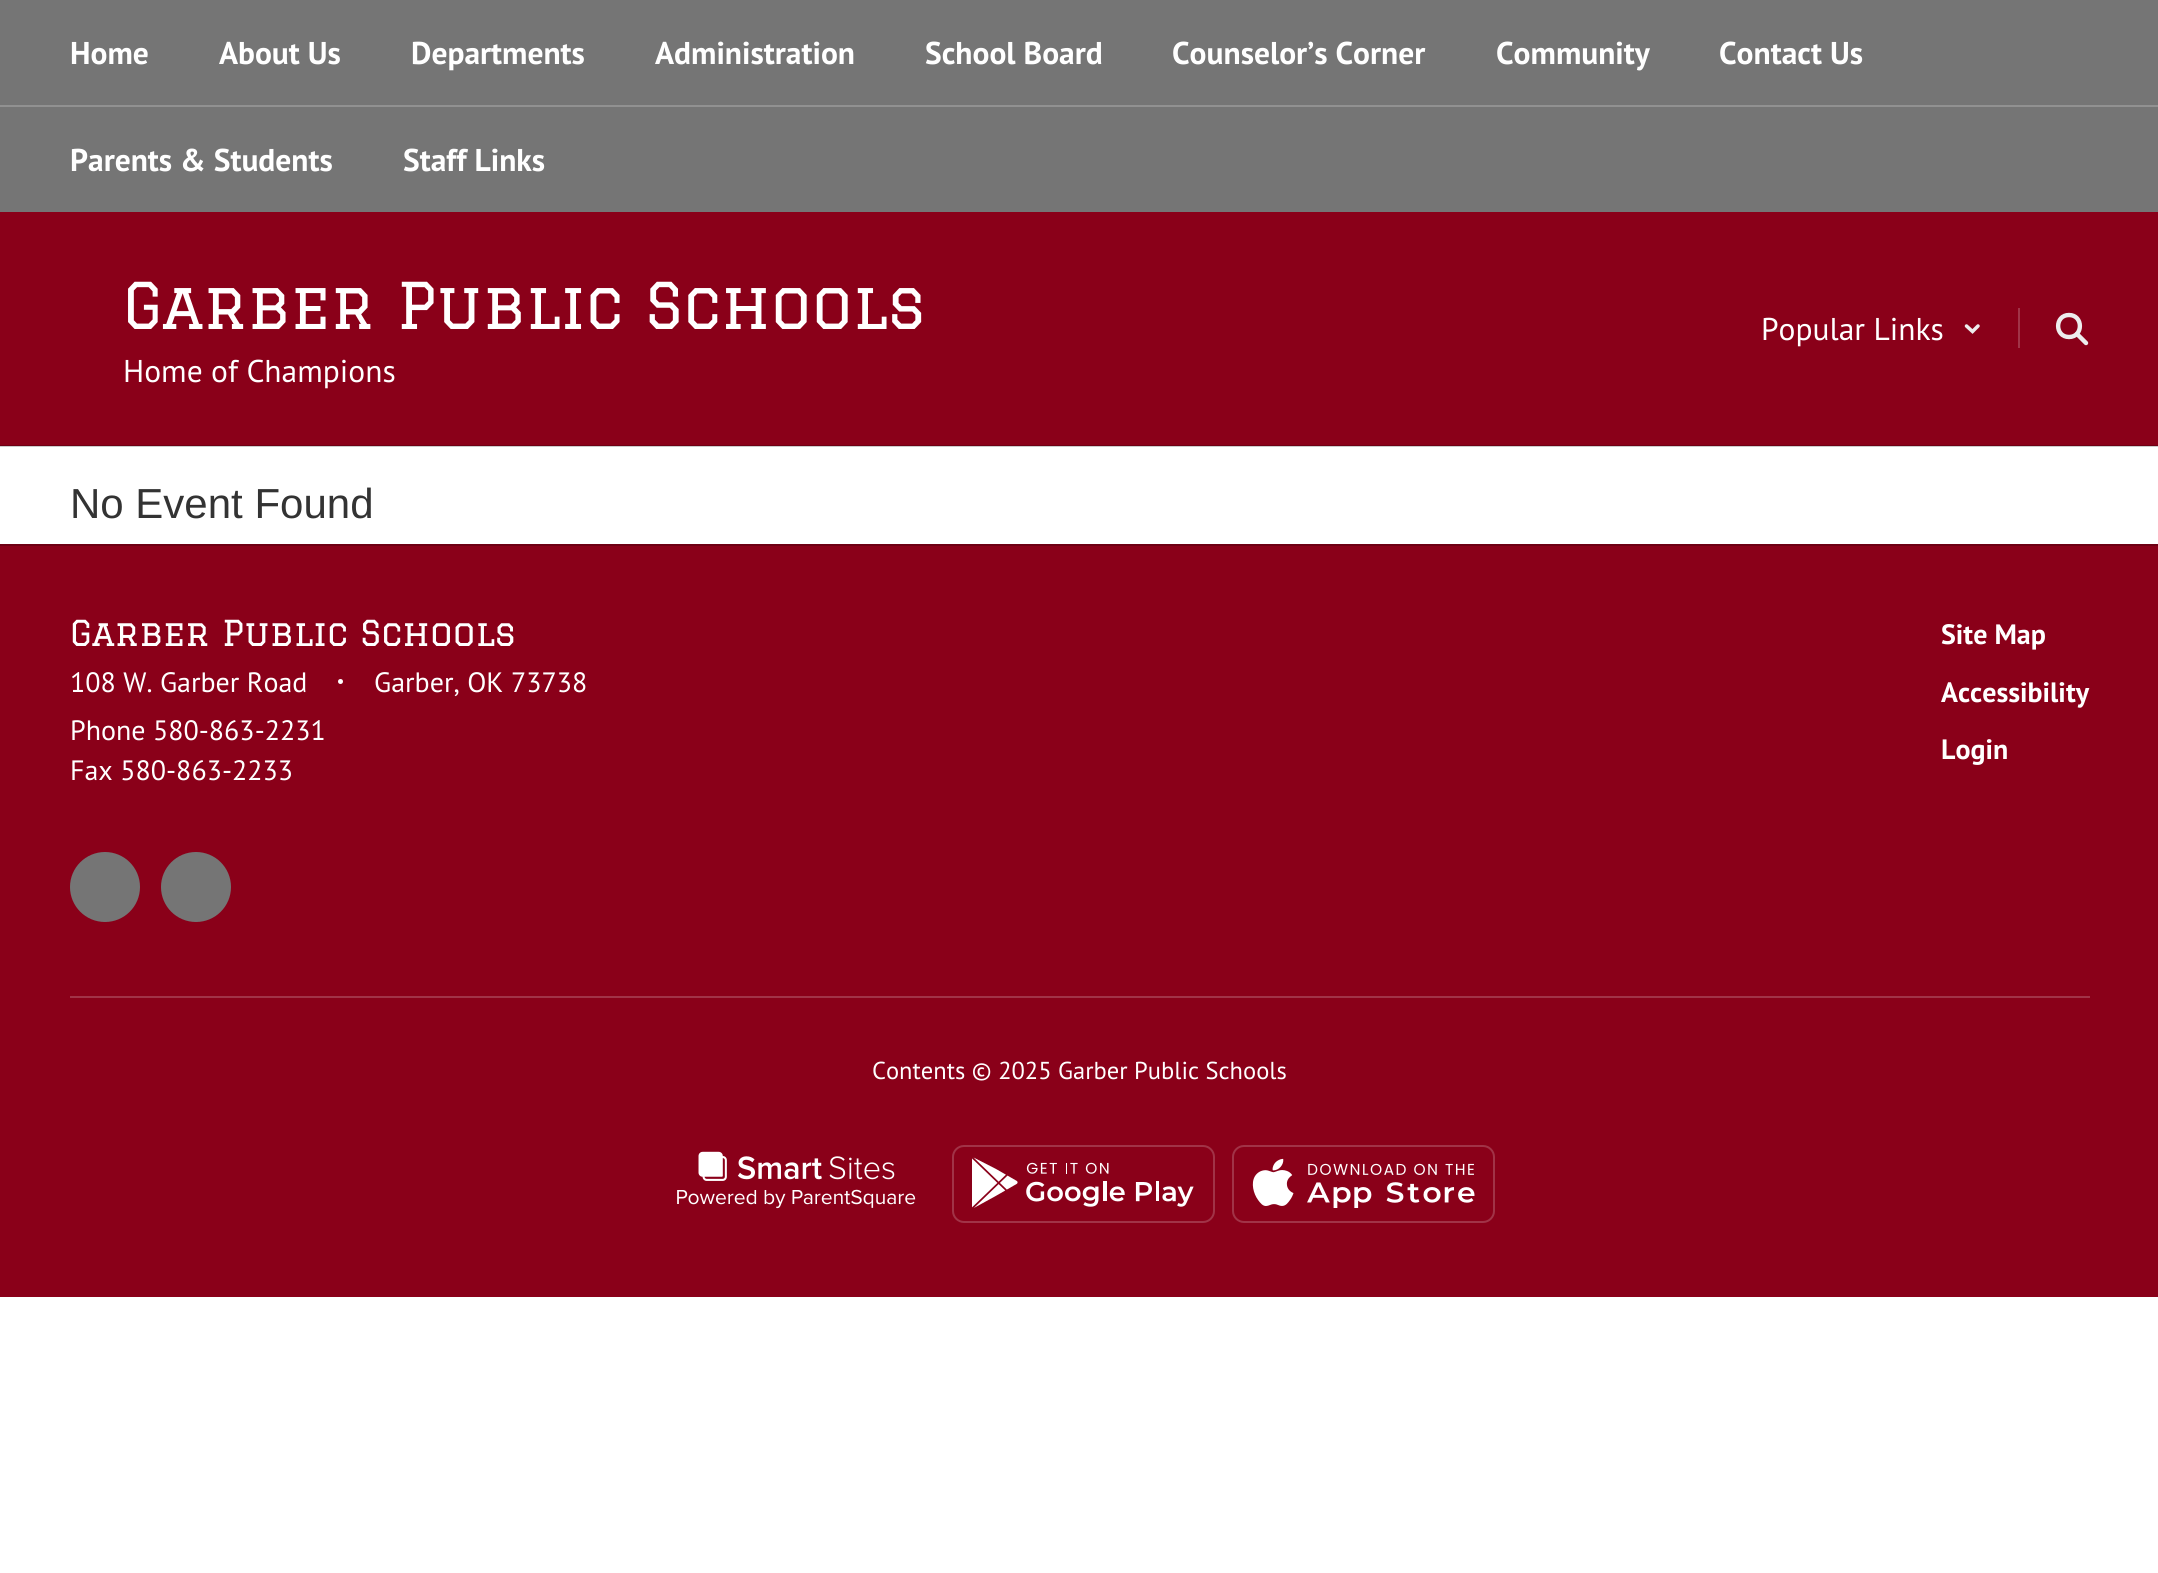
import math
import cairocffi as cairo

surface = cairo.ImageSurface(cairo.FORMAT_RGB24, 2158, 1573)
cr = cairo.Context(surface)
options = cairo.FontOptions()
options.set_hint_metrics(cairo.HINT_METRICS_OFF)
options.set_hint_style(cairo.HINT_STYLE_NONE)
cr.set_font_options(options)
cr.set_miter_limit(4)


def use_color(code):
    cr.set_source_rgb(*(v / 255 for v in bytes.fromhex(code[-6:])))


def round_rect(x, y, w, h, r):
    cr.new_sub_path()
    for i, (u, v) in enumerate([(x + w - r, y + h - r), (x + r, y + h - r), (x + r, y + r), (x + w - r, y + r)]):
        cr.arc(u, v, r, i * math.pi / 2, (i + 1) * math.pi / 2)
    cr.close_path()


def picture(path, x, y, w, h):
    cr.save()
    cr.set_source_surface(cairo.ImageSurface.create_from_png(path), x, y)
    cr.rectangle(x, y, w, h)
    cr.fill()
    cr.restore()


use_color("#ffffff")
cr.paint()
use_color("#cccccc")
cr.rectangle(0, 446, 2158, 1)
cr.fill()
use_color("#757575")
cr.rectangle(0, 0, 2158, 212)
cr.fill()
cr.select_font_face("PT Sans", cairo.FONT_SLANT_NORMAL, cairo.FONT_WEIGHT_BOLD)
cr.set_font_size(31.5)
use_color("#ffffff")
cr.move_to(70, 64)
cr.show_text("Home")
cr.move_to(219, 64)
cr.show_text("About Us")
cr.move_to(411, 64)
cr.show_text("Departments")
cr.move_to(655, 64)
cr.show_text("Administration")
cr.move_to(925, 64)
cr.show_text("School Board")
cr.move_to(1172, 64)
cr.show_text("Counselor’s Corner")
cr.move_to(1496, 64)
cr.show_text("Community")
cr.move_to(1719, 64)
cr.show_text("Contact Us")
use_color("#919191")
cr.rectangle(0, 105, 2158, 2)
cr.fill()
use_color("#ffffff")
cr.move_to(70, 171)
cr.show_text("Parents & Students")
cr.move_to(403, 171)
cr.show_text("Staff Links")
use_color("#8a0019")
cr.rectangle(0, 212, 2158, 233)
cr.fill()
use_color("#6e0014")
cr.rectangle(0, 445, 2158, 1)
cr.fill()
cr.select_font_face("Graduate")
cr.set_font_size(63)
use_color("#ffffff")
cr.move_to(123, 329)
cr.show_text("Garber Public Schools")
cr.select_font_face("PT Sans")
cr.set_font_size(31.5)
cr.move_to(123, 382)
cr.show_text("Home of Champions")
use_color("#a13347")
cr.rectangle(2018, 308, 2, 40)
cr.fill()
use_color("#ffffff")
cr.move_to(1761, 340)
cr.show_text("Popular Links")
cr.new_path()
cr.move_to(1966.5, 326)
cr.line_to(1972.5, 331.5)
cr.line_to(1978, 326)
use_color("#ededed")
cr.set_line_width(3.5)
cr.set_line_cap(cairo.LINE_CAP_ROUND)
cr.stroke()
cr.new_path()
cr.move_to(2069, 337)
cr.curve_to(2083.5, 337, 2083.5, 315, 2069, 315)
cr.curve_to(2054.5, 315, 2054.5, 337, 2069, 337)
cr.close_path()
cr.set_line_width(4.4)
cr.set_line_cap(cairo.LINE_CAP_SQUARE)
cr.set_line_join(cairo.LINE_JOIN_ROUND)
cr.stroke()
cr.new_path()
cr.move_to(2086, 343)
cr.line_to(2077, 334)
cr.set_line_cap(cairo.LINE_CAP_ROUND)
cr.stroke()
cr.select_font_face("Liberation Sans")
cr.set_font_size(42)
use_color("#333333")
cr.move_to(70, 518)
cr.show_text("No Event Found")
use_color("#6e0014")
cr.rectangle(0, 544, 2158, 2)
cr.fill()
use_color("#8a0019")
cr.rectangle(0, 546, 2158, 751)
cr.fill()
cr.select_font_face("Graduate")
cr.set_font_size(35)
use_color("#ffffff")
cr.move_to(70, 646)
cr.show_text("Garber Public Schools")
cr.select_font_face("PT Sans")
cr.set_font_size(28)
cr.move_to(70, 692)
cr.show_text("108 W. Garber Road")
cr.new_path()
cr.arc(340.5, 681.5, 2.5, 0, 2 * math.pi)
cr.fill()
cr.move_to(374, 692)
cr.show_text("Garber, OK 73738")
cr.move_to(70, 740)
cr.show_text("Phone 580-863-2231")
cr.move_to(70, 780)
cr.show_text("Fax 580-863-2233")
use_color("#757575")
cr.new_path()
cr.arc(105, 887, 35, 0, 2 * math.pi)
cr.fill()
cr.arc(196, 887, 35, 0, 2 * math.pi)
cr.fill()
cr.select_font_face("PT Sans", cairo.FONT_SLANT_NORMAL, cairo.FONT_WEIGHT_BOLD)
use_color("#ffffff")
cr.move_to(1941, 644)
cr.show_text("Site Map")
cr.move_to(1941, 702)
cr.show_text("Accessibility")
cr.move_to(1941, 759)
cr.show_text("Login")
use_color("#a13347")
cr.rectangle(70, 996, 2020, 2)
cr.fill()
cr.select_font_face("PT Sans")
cr.set_font_size(24.5)
use_color("#ffffff")
cr.move_to(872, 1079)
cr.show_text("Contents © 2025 Garber Public Schools")
picture("img1.png", 677, 1151, 239, 58)
round_rect(953, 1146, 261, 76, 11)
use_color("#a13347")
cr.set_line_width(2)
cr.set_line_cap(cairo.LINE_CAP_BUTT)
cr.set_line_join(cairo.LINE_JOIN_MITER)
cr.stroke()
picture("img2.png", 972, 1157, 222, 51)
round_rect(1233, 1146, 261, 76, 11)
cr.stroke()
picture("img3.png", 1252, 1158, 223, 50)
surface.write_to_png("result.png")
